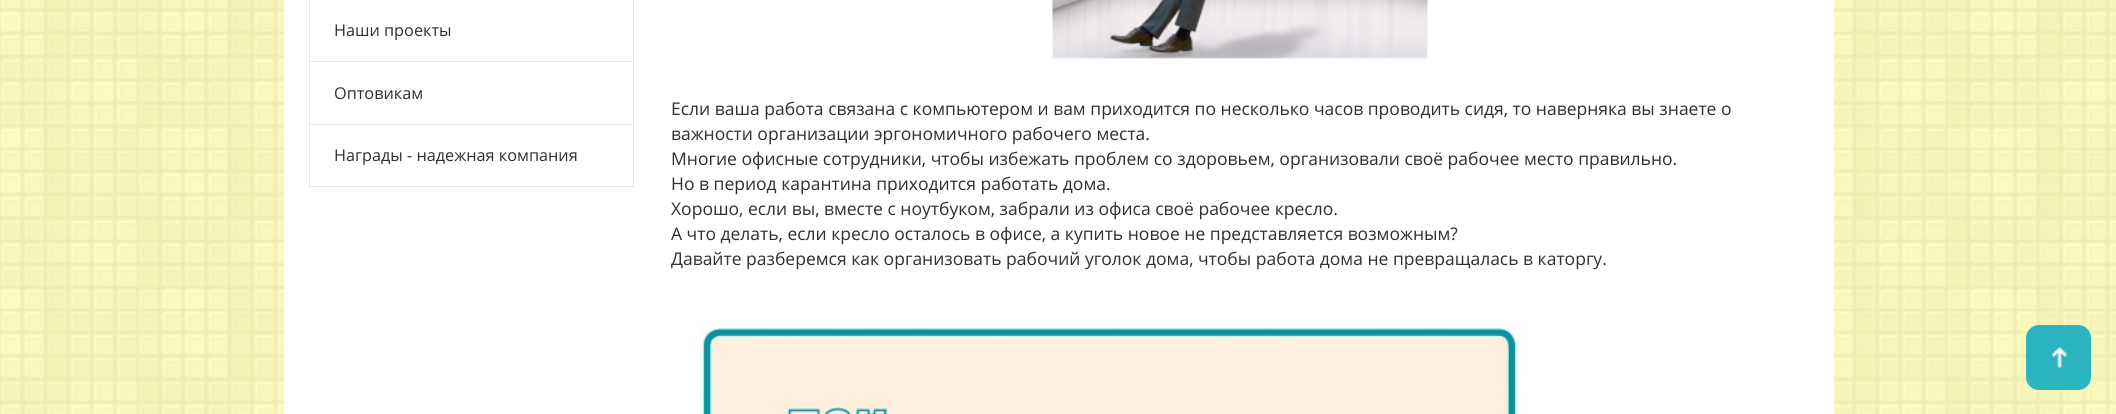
import math
import cairocffi as cairo

surface = cairo.ImageSurface(cairo.FORMAT_RGB24, 2116, 414)
cr = cairo.Context(surface)
options = cairo.FontOptions()
options.set_hint_metrics(cairo.HINT_METRICS_OFF)
options.set_hint_style(cairo.HINT_STYLE_NONE)
cr.set_font_options(options)
cr.set_miter_limit(4)


def use_color(code):
    cr.set_source_rgb(*(v / 255 for v in bytes.fromhex(code[-6:])))


def round_rect(x, y, w, h, r):
    cr.new_sub_path()
    for i, (u, v) in enumerate([(x + w - r, y + h - r), (x + r, y + h - r), (x + r, y + r), (x + w - r, y + r)]):
        cr.arc(u, v, r, i * math.pi / 2, (i + 1) * math.pi / 2)
    cr.close_path()


def picture(path, x, y, w, h):
    cr.save()
    cr.set_source_surface(cairo.ImageSurface.create_from_png(path), x, y)
    cr.rectangle(x, y, w, h)
    cr.fill()
    cr.restore()


use_color("#ffffff")
cr.paint()
picture("img1.png", 0, 0, 2116, 414)
use_color("#ffffff")
cr.rectangle(284, 0, 1550, 414)
cr.fill()
use_color("#e8e8e8")
cr.rectangle(633, 0, 1, 188)
cr.fill()
cr.rectangle(309, 61, 325, 1)
cr.fill()
cr.rectangle(309, 0, 1, 63)
cr.fill()
cr.select_font_face("Open Sans")
cr.set_font_size(16.25)
use_color("#303030")
cr.move_to(334, 36)
cr.show_text("Наши проекты")
use_color("#e8e8e8")
cr.rectangle(309, 124, 325, 1)
cr.fill()
cr.rectangle(309, 63, 1, 62)
cr.fill()
use_color("#303030")
cr.move_to(334, 99)
cr.show_text("Оптовикам")
use_color("#e8e8e8")
cr.rectangle(309, 186, 325, 1)
cr.fill()
cr.rectangle(309, 125, 1, 63)
cr.fill()
use_color("#303030")
cr.move_to(334, 161)
cr.show_text("Награды - надежная компания")
picture("img2.png", 1052, 0, 376, 59)
cr.set_font_size(17.5)
cr.move_to(671, 115)
cr.show_text("Если ваша работа связана с компьютером и вам приходится по несколько часов проводить сидя, то наверняка вы знаете о")
cr.move_to(671, 140)
cr.show_text("важности организации эргономичного рабочего места.")
cr.move_to(671, 165)
cr.show_text("Многие офисные сотрудники, чтобы избежать проблем со здоровьем, организовали своё рабочее место правильно.")
cr.move_to(671, 190)
cr.show_text("Но в период карантина приходится работать дома.")
cr.move_to(671, 215)
cr.show_text("Хорошо, если вы, вместе с ноутбуком, забрали из офиса своё рабочее кресло.")
cr.move_to(671, 240)
cr.show_text("А что делать, если кресло осталось в офисе, а купить новое не представляется возможным?")
cr.move_to(671, 265)
cr.show_text("Давайте разберемся как организовать рабочий уголок дома, чтобы работа дома не превращалась в каторгу.")
picture("img3.png", 699, 320, 832, 94)
use_color("#2bb3c0")
round_rect(2026, 325, 65, 65, 13)
cr.fill()
picture("img4.png", 2052, 347, 15, 21)
surface.write_to_png("result.png")
